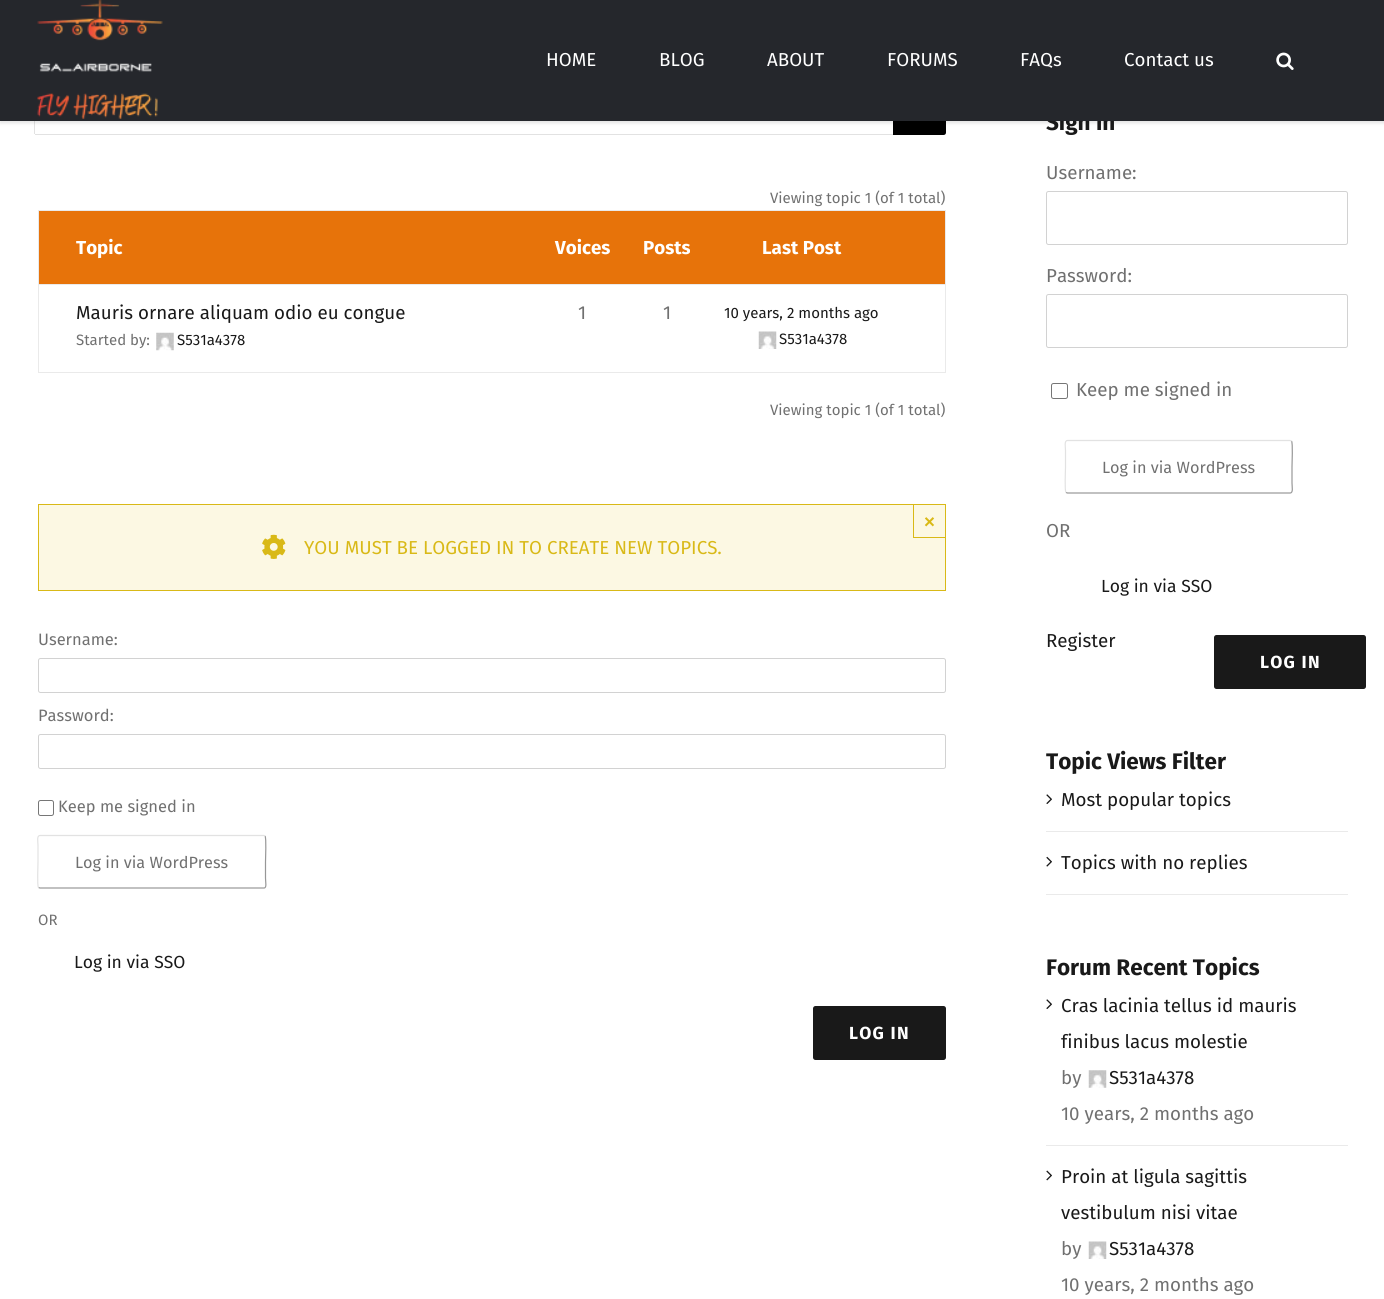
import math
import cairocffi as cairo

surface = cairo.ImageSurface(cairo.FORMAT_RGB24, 1384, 1299)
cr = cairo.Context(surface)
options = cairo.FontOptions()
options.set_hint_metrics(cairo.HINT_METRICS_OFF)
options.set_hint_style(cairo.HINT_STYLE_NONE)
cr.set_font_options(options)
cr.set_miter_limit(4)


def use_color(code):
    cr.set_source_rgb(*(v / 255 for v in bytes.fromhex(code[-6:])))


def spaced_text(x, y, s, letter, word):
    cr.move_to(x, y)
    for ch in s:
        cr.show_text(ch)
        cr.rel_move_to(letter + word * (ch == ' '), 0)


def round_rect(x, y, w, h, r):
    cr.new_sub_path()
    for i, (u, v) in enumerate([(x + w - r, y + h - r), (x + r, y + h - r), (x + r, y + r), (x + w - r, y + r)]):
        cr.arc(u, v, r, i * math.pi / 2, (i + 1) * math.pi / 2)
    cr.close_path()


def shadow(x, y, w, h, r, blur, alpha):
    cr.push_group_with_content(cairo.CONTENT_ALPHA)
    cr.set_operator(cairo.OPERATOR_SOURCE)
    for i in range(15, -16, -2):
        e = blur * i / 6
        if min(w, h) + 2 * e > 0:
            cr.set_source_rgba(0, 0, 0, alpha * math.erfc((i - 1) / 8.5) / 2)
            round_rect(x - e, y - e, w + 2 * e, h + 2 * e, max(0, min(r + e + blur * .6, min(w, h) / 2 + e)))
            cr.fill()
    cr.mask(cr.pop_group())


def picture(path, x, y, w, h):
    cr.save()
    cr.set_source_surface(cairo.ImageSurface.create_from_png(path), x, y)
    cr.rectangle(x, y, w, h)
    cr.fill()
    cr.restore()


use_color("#ffffff")
cr.paint()
use_color("#e2e2e2")
cr.rectangle(34, 121, 1, 13)
cr.fill()
use_color("#000000")
cr.new_path()
cr.move_to(893, 81)
cr.line_to(943.5, 81)
cr.curve_to(945, 81, 946, 82, 946, 83.5)
cr.line_to(946, 132.5)
cr.curve_to(946, 134, 945, 135, 943.5, 135)
cr.line_to(893, 135)
cr.close_path()
cr.fill()
use_color("#000000")
shadow(0, 1, 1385, 122, 0, 2, 0.12)
cr.select_font_face("Fira Sans", cairo.FONT_SLANT_NORMAL, cairo.FONT_WEIGHT_BOLD)
cr.set_font_size(22.5)
use_color("#191919")
cr.move_to(1046, 130)
cr.show_text("Sign in")
use_color("#25272c")
cr.rectangle(0, 0, 1384, 121)
cr.fill()
picture("img1.png", 37, 0, 126, 119)
cr.select_font_face("Fira Sans")
cr.set_font_size(18.75)
use_color("#ffffff")
cr.move_to(546, 66)
cr.show_text("HOME")
cr.move_to(659, 66)
cr.show_text("BLOG")
cr.move_to(767, 66)
cr.show_text("ABOUT")
cr.move_to(887, 66)
cr.show_text("FORUMS")
cr.move_to(1020, 66)
cr.show_text("FAQs")
cr.move_to(1124, 66)
cr.show_text("Contact us")
picture("img2.png", 1276, 52, 18, 18)
use_color("#e2e2e2")
cr.rectangle(35, 134, 858, 1)
cr.fill()
cr.set_font_size(15)
use_color("#707070")
cr.move_to(770, 203)
cr.show_text("Viewing topic 1 (of 1 total)")
cr.rectangle(38.5, 210.5, 907, 162)
use_color("#eaeaea")
cr.set_line_width(1)
cr.stroke()
use_color("#e7730a")
cr.rectangle(39, 211, 906, 73)
cr.fill()
cr.select_font_face("Fira Sans", cairo.FONT_SLANT_NORMAL, cairo.FONT_WEIGHT_BOLD)
cr.set_font_size(18.75)
use_color("#ffffff")
cr.move_to(76, 254)
cr.show_text("Topic")
cr.move_to(555, 254)
cr.show_text("Voices")
cr.move_to(643, 254)
cr.show_text("Posts")
cr.move_to(762, 254)
cr.show_text("Last Post")
use_color("#eaeaea")
cr.rectangle(39, 284, 906, 1)
cr.fill()
cr.select_font_face("Fira Sans")
use_color("#191919")
cr.move_to(76, 319)
cr.show_text("Mauris ornare aliquam odio eu congue")
cr.set_font_size(15)
use_color("#707070")
cr.move_to(76, 345)
cr.show_text("Started by:")
picture("img3.png", 156, 332, 18, 19)
use_color("#191919")
cr.move_to(177, 345)
cr.show_text("S531a4378")
cr.set_font_size(18.75)
use_color("#707070")
cr.move_to(578, 319)
cr.show_text("1")
cr.move_to(663, 319)
cr.show_text("1")
cr.set_font_size(15)
use_color("#191919")
cr.move_to(724, 318)
cr.show_text("10 years, 2 months ago")
picture("img4.png", 758, 331, 19, 18)
cr.move_to(779, 344)
cr.show_text("S531a4378")
use_color("#707070")
cr.move_to(770, 415)
cr.show_text("Viewing topic 1 (of 1 total)")
use_color("#fcf8e3")
cr.rectangle(38.5, 504.5, 907, 86)
cr.fill_preserve()
use_color("#d9b917")
cr.stroke()
cr.rectangle(913.5, 504.5, 32, 33)
cr.stroke()
cr.select_font_face("Liberation Sans", cairo.FONT_SLANT_NORMAL, cairo.FONT_WEIGHT_BOLD)
cr.set_font_size(18.75)
cr.move_to(924, 528)
cr.show_text("×")
picture("img5.png", 262, 534, 24, 25)
cr.select_font_face("Fira Sans")
cr.move_to(304, 554)
cr.show_text("YOU MUST BE LOGGED IN TO CREATE NEW TOPICS.")
cr.set_font_size(16.5)
use_color("#707070")
cr.move_to(38, 645)
cr.show_text("Username:")
round_rect(38.5, 658.5, 907, 34, 2)
use_color("#d2d2d2")
cr.stroke()
use_color("#707070")
cr.move_to(38, 721)
cr.show_text("Password:")
round_rect(38.5, 734.5, 907, 34, 2)
use_color("#d2d2d2")
cr.stroke()
round_rect(38.5, 800.5, 15, 15, 2)
use_color("#767676")
cr.stroke()
use_color("#707070")
cr.move_to(58, 812)
cr.show_text("Keep me signed in")
cr.new_path()
cr.move_to(265, 836)
cr.curve_to(266.5, 838, 265.5, 858.5, 265.5, 862)
cr.line_to(265.5, 878)
cr.curve_to(265.5, 882, 267, 888, 264, 888)
cr.line_to(40, 888)
cr.line_to(38.5, 887.5)
use_color("#979797")
cr.set_line_width(1.2)
cr.stroke()
cr.new_path()
cr.move_to(38.5, 887.5)
cr.curve_to(37, 886, 38, 865, 38, 862)
cr.line_to(38, 845.5)
cr.curve_to(38, 842, 36.5, 835.5, 40, 835.5)
cr.line_to(264, 835.5)
cr.line_to(265, 836)
use_color("#e2e2e2")
cr.stroke()
cr.set_font_size(16.25)
use_color("#707070")
cr.move_to(75, 868)
cr.show_text("Log in via WordPress")
cr.set_font_size(15)
cr.move_to(38, 925)
cr.show_text("OR")
cr.set_font_size(17.5)
use_color("#191919")
cr.move_to(74, 968)
cr.show_text("Log in via SSO")
round_rect(813, 1006, 133, 54, 2.5)
cr.fill()
cr.select_font_face("Fira Sans", cairo.FONT_SLANT_NORMAL, cairo.FONT_WEIGHT_BOLD)
use_color("#ffffff")
spaced_text(849, 1039, "LOG IN", 1.25, 0)
cr.select_font_face("Fira Sans")
cr.set_font_size(18.75)
use_color("#707070")
cr.move_to(1046, 179)
cr.show_text("Username:")
round_rect(1046.5, 191.5, 301, 53, 2)
use_color("#d2d2d2")
cr.set_line_width(1)
cr.stroke()
use_color("#707070")
cr.move_to(1046, 282)
cr.show_text("Password:")
round_rect(1046.5, 294.5, 301, 53, 2)
use_color("#d2d2d2")
cr.stroke()
round_rect(1051.5, 383.5, 16, 15, 2)
use_color("#767676")
cr.stroke()
use_color("#707070")
cr.move_to(1076, 396)
cr.show_text("Keep me signed in")
cr.new_path()
cr.move_to(1291.5, 441)
cr.curve_to(1293, 443, 1292, 463.5, 1292, 467)
cr.line_to(1292, 483)
cr.curve_to(1292, 487, 1293.5, 493, 1290, 493)
cr.line_to(1067.5, 493)
cr.line_to(1066, 492.5)
use_color("#979797")
cr.set_line_width(1.2)
cr.stroke()
cr.new_path()
cr.move_to(1066, 492.5)
cr.curve_to(1064.5, 491, 1065.5, 470, 1065.5, 467)
cr.line_to(1065.5, 450.5)
cr.curve_to(1065.5, 447, 1064, 440.5, 1067.5, 440.5)
cr.line_to(1290, 440.5)
cr.line_to(1291.5, 441)
use_color("#e2e2e2")
cr.stroke()
cr.set_font_size(16.25)
use_color("#707070")
cr.move_to(1102, 473)
cr.show_text("Log in via WordPress")
cr.set_font_size(18.75)
cr.move_to(1046, 537)
cr.show_text("OR")
cr.set_font_size(17.5)
use_color("#191919")
cr.move_to(1101, 592)
cr.show_text("Log in via SSO")
cr.set_font_size(18.75)
cr.move_to(1046, 647)
cr.show_text("Register")
round_rect(1214, 635, 152, 54, 2.5)
cr.fill()
cr.select_font_face("Fira Sans", cairo.FONT_SLANT_NORMAL, cairo.FONT_WEIGHT_BOLD)
cr.set_font_size(17.5)
use_color("#ffffff")
spaced_text(1260, 668, "LOG IN", 1.25, 0)
cr.set_font_size(22.5)
use_color("#191919")
cr.move_to(1046, 769)
cr.show_text("Topic Views Filter")
use_color("#eaeaea")
cr.rectangle(1046, 831, 302, 1)
cr.fill()
picture("img6.png", 1046, 794, 6, 10)
cr.select_font_face("Fira Sans")
cr.set_font_size(18.75)
use_color("#191919")
cr.move_to(1061, 806)
cr.show_text("Most popular topics")
use_color("#eaeaea")
cr.rectangle(1046, 894, 302, 1)
cr.fill()
picture("img7.png", 1046, 856, 6, 11)
use_color("#191919")
cr.move_to(1061, 869)
cr.show_text("Topics with no replies")
cr.select_font_face("Fira Sans", cairo.FONT_SLANT_NORMAL, cairo.FONT_WEIGHT_BOLD)
cr.set_font_size(22.5)
cr.move_to(1046, 975)
cr.show_text("Forum Recent Topics")
use_color("#eaeaea")
cr.rectangle(1046, 1145, 302, 1)
cr.fill()
picture("img6.png", 1046, 999, 6, 10)
cr.select_font_face("Fira Sans")
cr.set_font_size(18.75)
use_color("#191919")
cr.move_to(1061, 1012)
cr.show_text("Cras lacinia tellus id mauris")
cr.move_to(1061, 1048)
cr.show_text("finibus lacus molestie")
use_color("#707070")
cr.move_to(1061, 1084)
cr.show_text("by")
picture("img8.png", 1088, 1070, 19, 18)
use_color("#191919")
cr.move_to(1109, 1084)
cr.show_text("S531a4378")
use_color("#707070")
cr.move_to(1061, 1120)
cr.show_text("10 years, 2 months ago")
picture("img9.png", 1046, 1170, 6, 11)
use_color("#191919")
cr.move_to(1061, 1183)
cr.show_text("Proin at ligula sagittis")
cr.move_to(1061, 1219)
cr.show_text("vestibulum nisi vitae")
use_color("#707070")
cr.move_to(1061, 1255)
cr.show_text("by")
picture("img10.png", 1088, 1241, 19, 18)
use_color("#191919")
cr.move_to(1109, 1255)
cr.show_text("S531a4378")
use_color("#707070")
cr.move_to(1061, 1291)
cr.show_text("10 years, 2 months ago")
surface.write_to_png("result.png")
